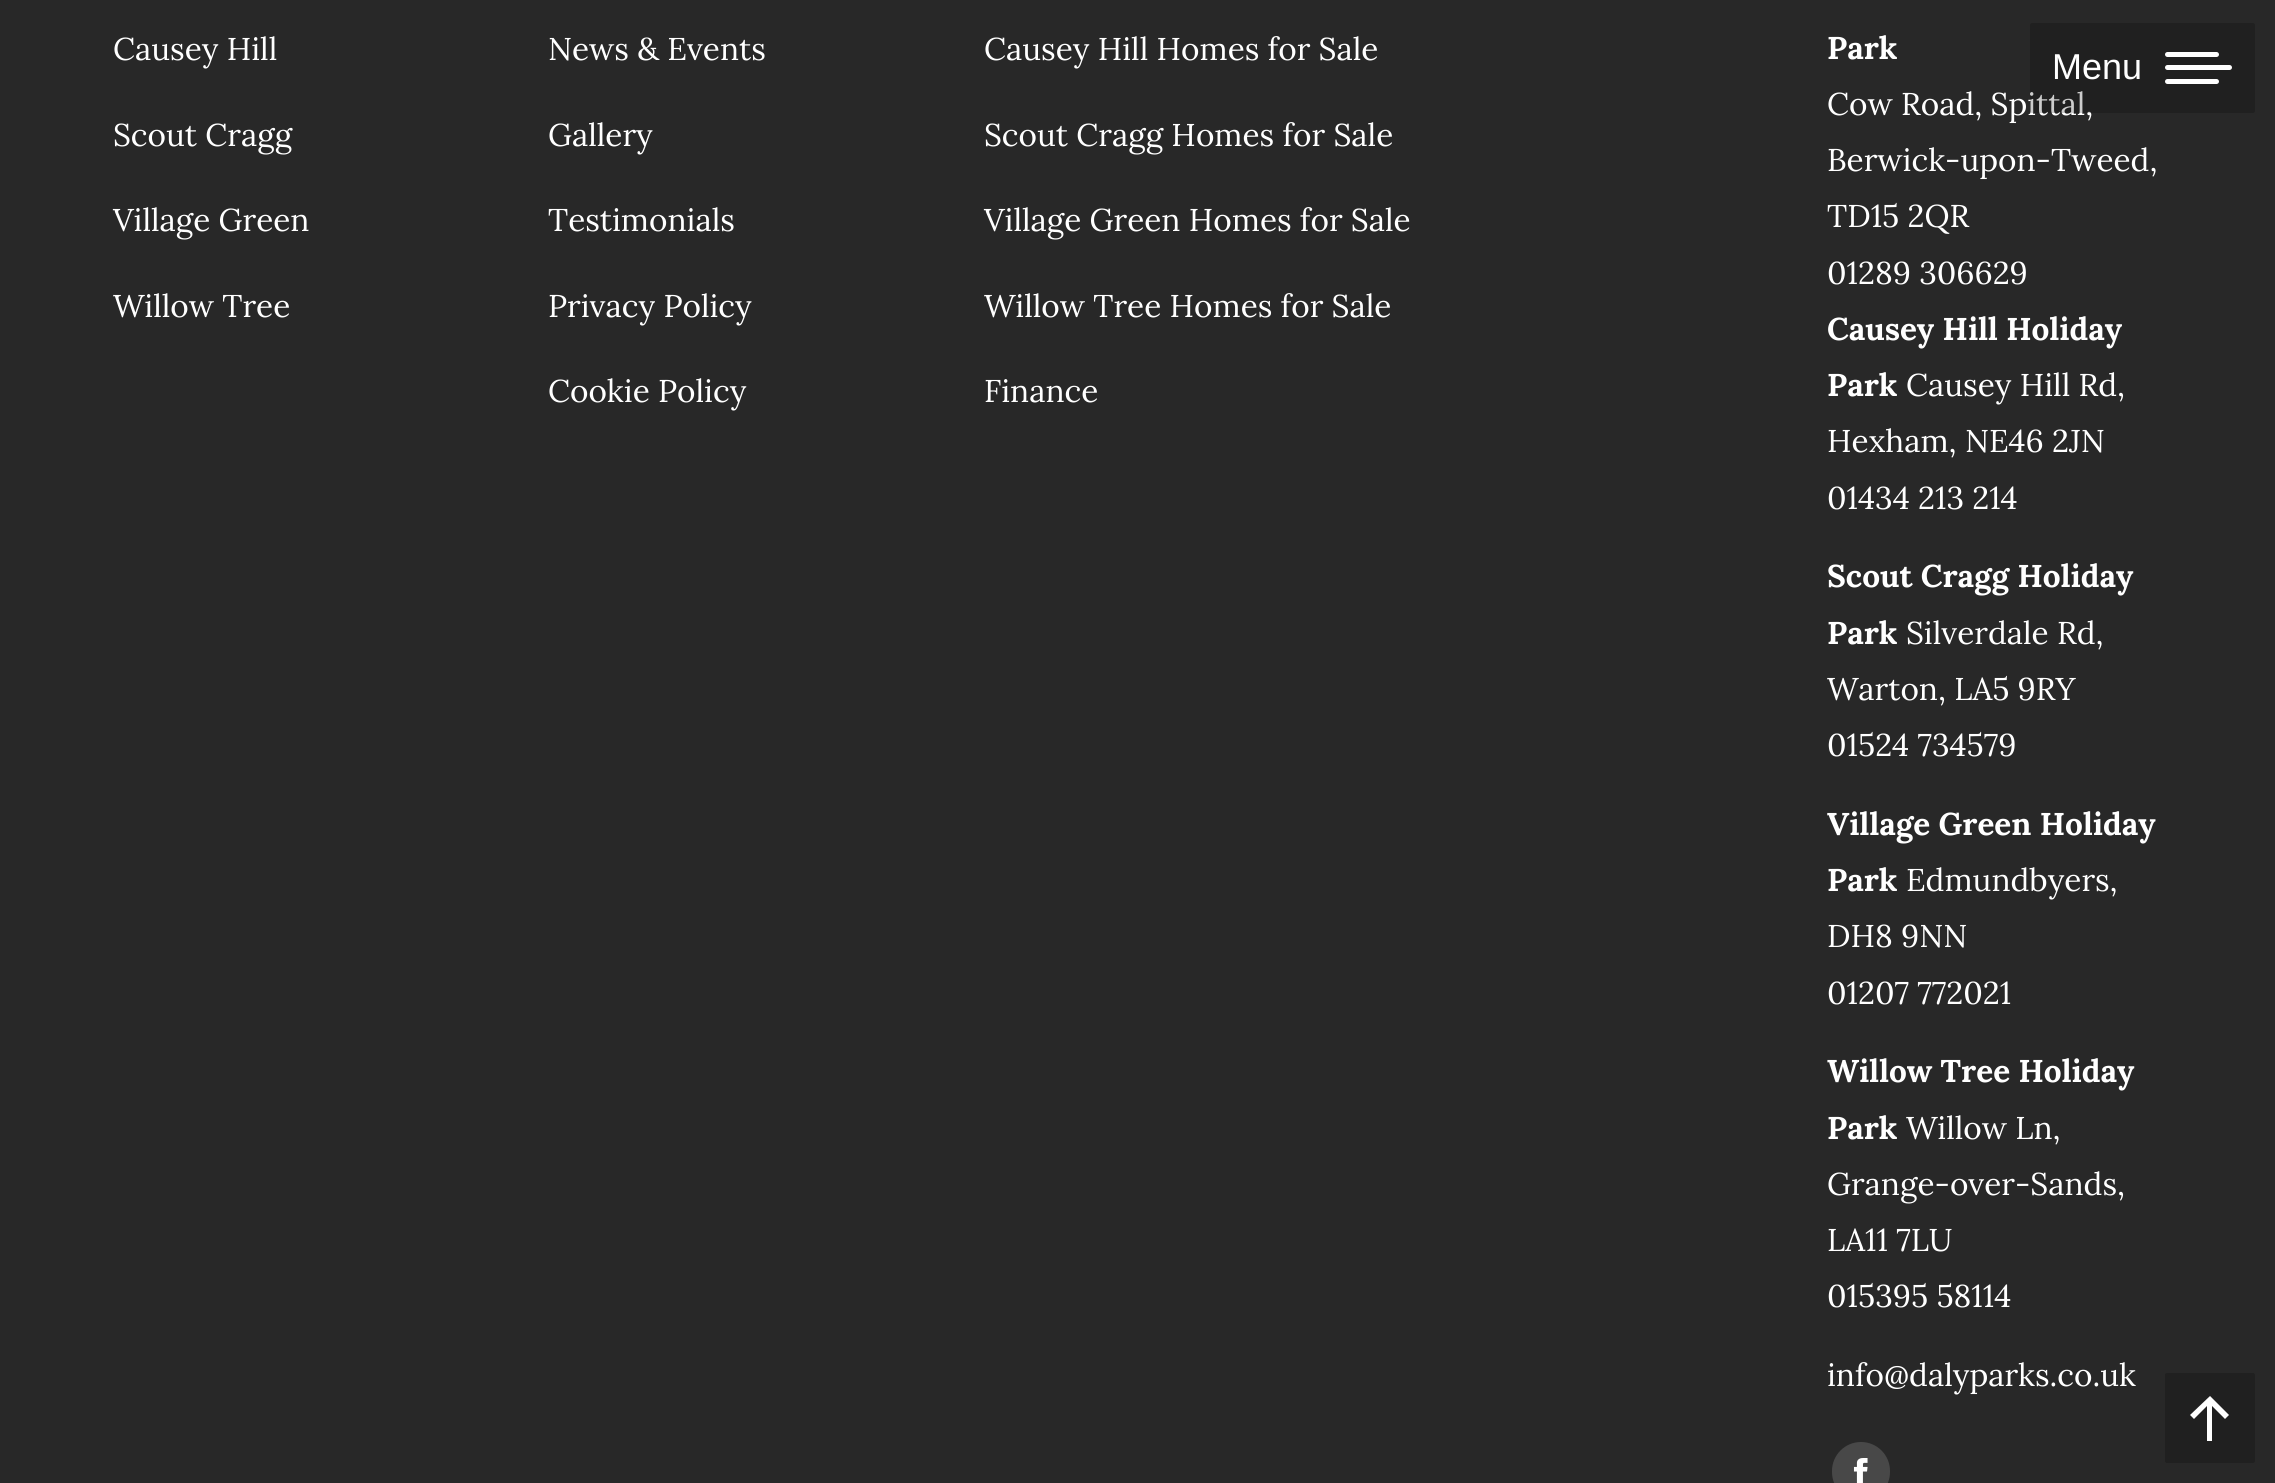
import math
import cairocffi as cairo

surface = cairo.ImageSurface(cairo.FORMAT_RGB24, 2275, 1483)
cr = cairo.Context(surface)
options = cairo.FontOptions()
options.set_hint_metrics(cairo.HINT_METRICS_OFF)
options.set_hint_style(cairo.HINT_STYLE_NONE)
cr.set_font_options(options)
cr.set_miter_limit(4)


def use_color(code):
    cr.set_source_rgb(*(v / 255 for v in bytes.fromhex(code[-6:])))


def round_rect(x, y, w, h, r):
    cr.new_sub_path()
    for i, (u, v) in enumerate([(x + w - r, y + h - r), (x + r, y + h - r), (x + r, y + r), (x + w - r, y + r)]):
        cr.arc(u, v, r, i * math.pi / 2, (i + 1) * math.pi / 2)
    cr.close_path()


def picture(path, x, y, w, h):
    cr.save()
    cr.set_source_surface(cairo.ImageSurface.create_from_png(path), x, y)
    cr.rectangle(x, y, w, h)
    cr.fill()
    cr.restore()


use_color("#282828")
cr.paint()
cr.select_font_face("Lora")
cr.set_font_size(31.5)
use_color("#ffffff")
cr.move_to(113, 60)
cr.show_text("Causey Hill")
cr.move_to(113, 146)
cr.show_text("Scout Cragg")
cr.move_to(113, 231)
cr.show_text("Village Green")
cr.move_to(113, 317)
cr.show_text("Willow Tree")
cr.move_to(548, 60)
cr.show_text("News & Events")
cr.move_to(548, 146)
cr.show_text("Gallery")
cr.move_to(548, 231)
cr.show_text("Testimonials")
cr.move_to(548, 317)
cr.show_text("Privacy Policy")
cr.move_to(548, 402)
cr.show_text("Cookie Policy")
cr.move_to(984, 60)
cr.show_text("Causey Hill Homes for Sale")
cr.move_to(984, 146)
cr.show_text("Scout Cragg Homes for Sale")
cr.move_to(984, 231)
cr.show_text("Village Green Homes for Sale")
cr.move_to(984, 317)
cr.show_text("Willow Tree Homes for Sale")
cr.move_to(984, 402)
cr.show_text("Finance")
cr.select_font_face("Lora", cairo.FONT_SLANT_NORMAL, cairo.FONT_WEIGHT_BOLD)
cr.move_to(1827, 59)
cr.show_text("Park")
cr.select_font_face("Lora")
cr.move_to(1827, 115)
cr.show_text("Cow Road, Spittal,")
cr.move_to(1827, 171)
cr.show_text("Berwick-upon-Tweed,")
cr.move_to(1827, 227)
cr.show_text("TD15 2QR")
cr.move_to(1827, 284)
cr.show_text("01289 306629")
cr.select_font_face("Lora", cairo.FONT_SLANT_NORMAL, cairo.FONT_WEIGHT_BOLD)
cr.move_to(1827, 340)
cr.show_text("Causey Hill Holiday")
cr.move_to(1827, 396)
cr.show_text("Park")
cr.select_font_face("Lora")
cr.move_to(1906, 396)
cr.show_text("Causey Hill Rd,")
cr.move_to(1827, 452)
cr.show_text("Hexham, NE46 2JN")
cr.move_to(1827, 509)
cr.show_text("01434 213 214")
cr.select_font_face("Lora", cairo.FONT_SLANT_NORMAL, cairo.FONT_WEIGHT_BOLD)
cr.move_to(1827, 587)
cr.show_text("Scout Cragg Holiday")
cr.move_to(1827, 644)
cr.show_text("Park")
cr.select_font_face("Lora")
cr.move_to(1906, 644)
cr.show_text("Silverdale Rd,")
cr.move_to(1827, 700)
cr.show_text("Warton, LA5 9RY")
cr.move_to(1827, 756)
cr.show_text("01524 734579")
cr.select_font_face("Lora", cairo.FONT_SLANT_NORMAL, cairo.FONT_WEIGHT_BOLD)
cr.move_to(1827, 835)
cr.show_text("Village Green Holiday")
cr.move_to(1827, 891)
cr.show_text("Park")
cr.select_font_face("Lora")
cr.move_to(1906, 891)
cr.show_text("Edmundbyers,")
cr.move_to(1827, 947)
cr.show_text("DH8 9NN")
cr.move_to(1827, 1004)
cr.show_text("01207 772021")
cr.select_font_face("Lora", cairo.FONT_SLANT_NORMAL, cairo.FONT_WEIGHT_BOLD)
cr.move_to(1827, 1082)
cr.show_text("Willow Tree Holiday")
cr.move_to(1827, 1139)
cr.show_text("Park")
cr.select_font_face("Lora")
cr.move_to(1906, 1139)
cr.show_text("Willow Ln,")
cr.move_to(1827, 1195)
cr.show_text("Grange-over-Sands,")
cr.move_to(1827, 1251)
cr.show_text("LA11 7LU")
cr.move_to(1827, 1307)
cr.show_text("015395 58114")
cr.move_to(1827, 1386)
cr.show_text("info@dalyparks.co.uk")
use_color("#484848")
round_rect(1832, 1442, 58, 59, 29)
cr.fill()
picture("img1.png", 1853, 1458, 15, 25)
cr.set_source_rgba(0, 0, 0, 0.2)
round_rect(2030, 23, 225, 90, 2)
cr.fill()
cr.select_font_face("Liberation Sans")
cr.set_font_size(36)
use_color("#ffffff")
cr.move_to(2052, 79)
cr.show_text("Menu")
round_rect(2165, 52, 54, 5, 2.5)
cr.fill()
round_rect(2165, 65, 67, 5, 2.5)
cr.fill()
round_rect(2165, 79, 54, 5, 2.5)
cr.fill()
use_color("#202020")
round_rect(2165, 1373, 90, 90, 2)
cr.fill()
use_color("#ffffff")
cr.new_path()
cr.move_to(2190, 1415)
cr.line_to(2194, 1419)
cr.line_to(2207, 1406)
cr.line_to(2207, 1441)
cr.line_to(2212, 1441)
cr.line_to(2212, 1406)
cr.line_to(2225, 1419)
cr.line_to(2229, 1415)
cr.line_to(2210, 1396)
cr.close_path()
cr.fill()
surface.write_to_png("result.png")
